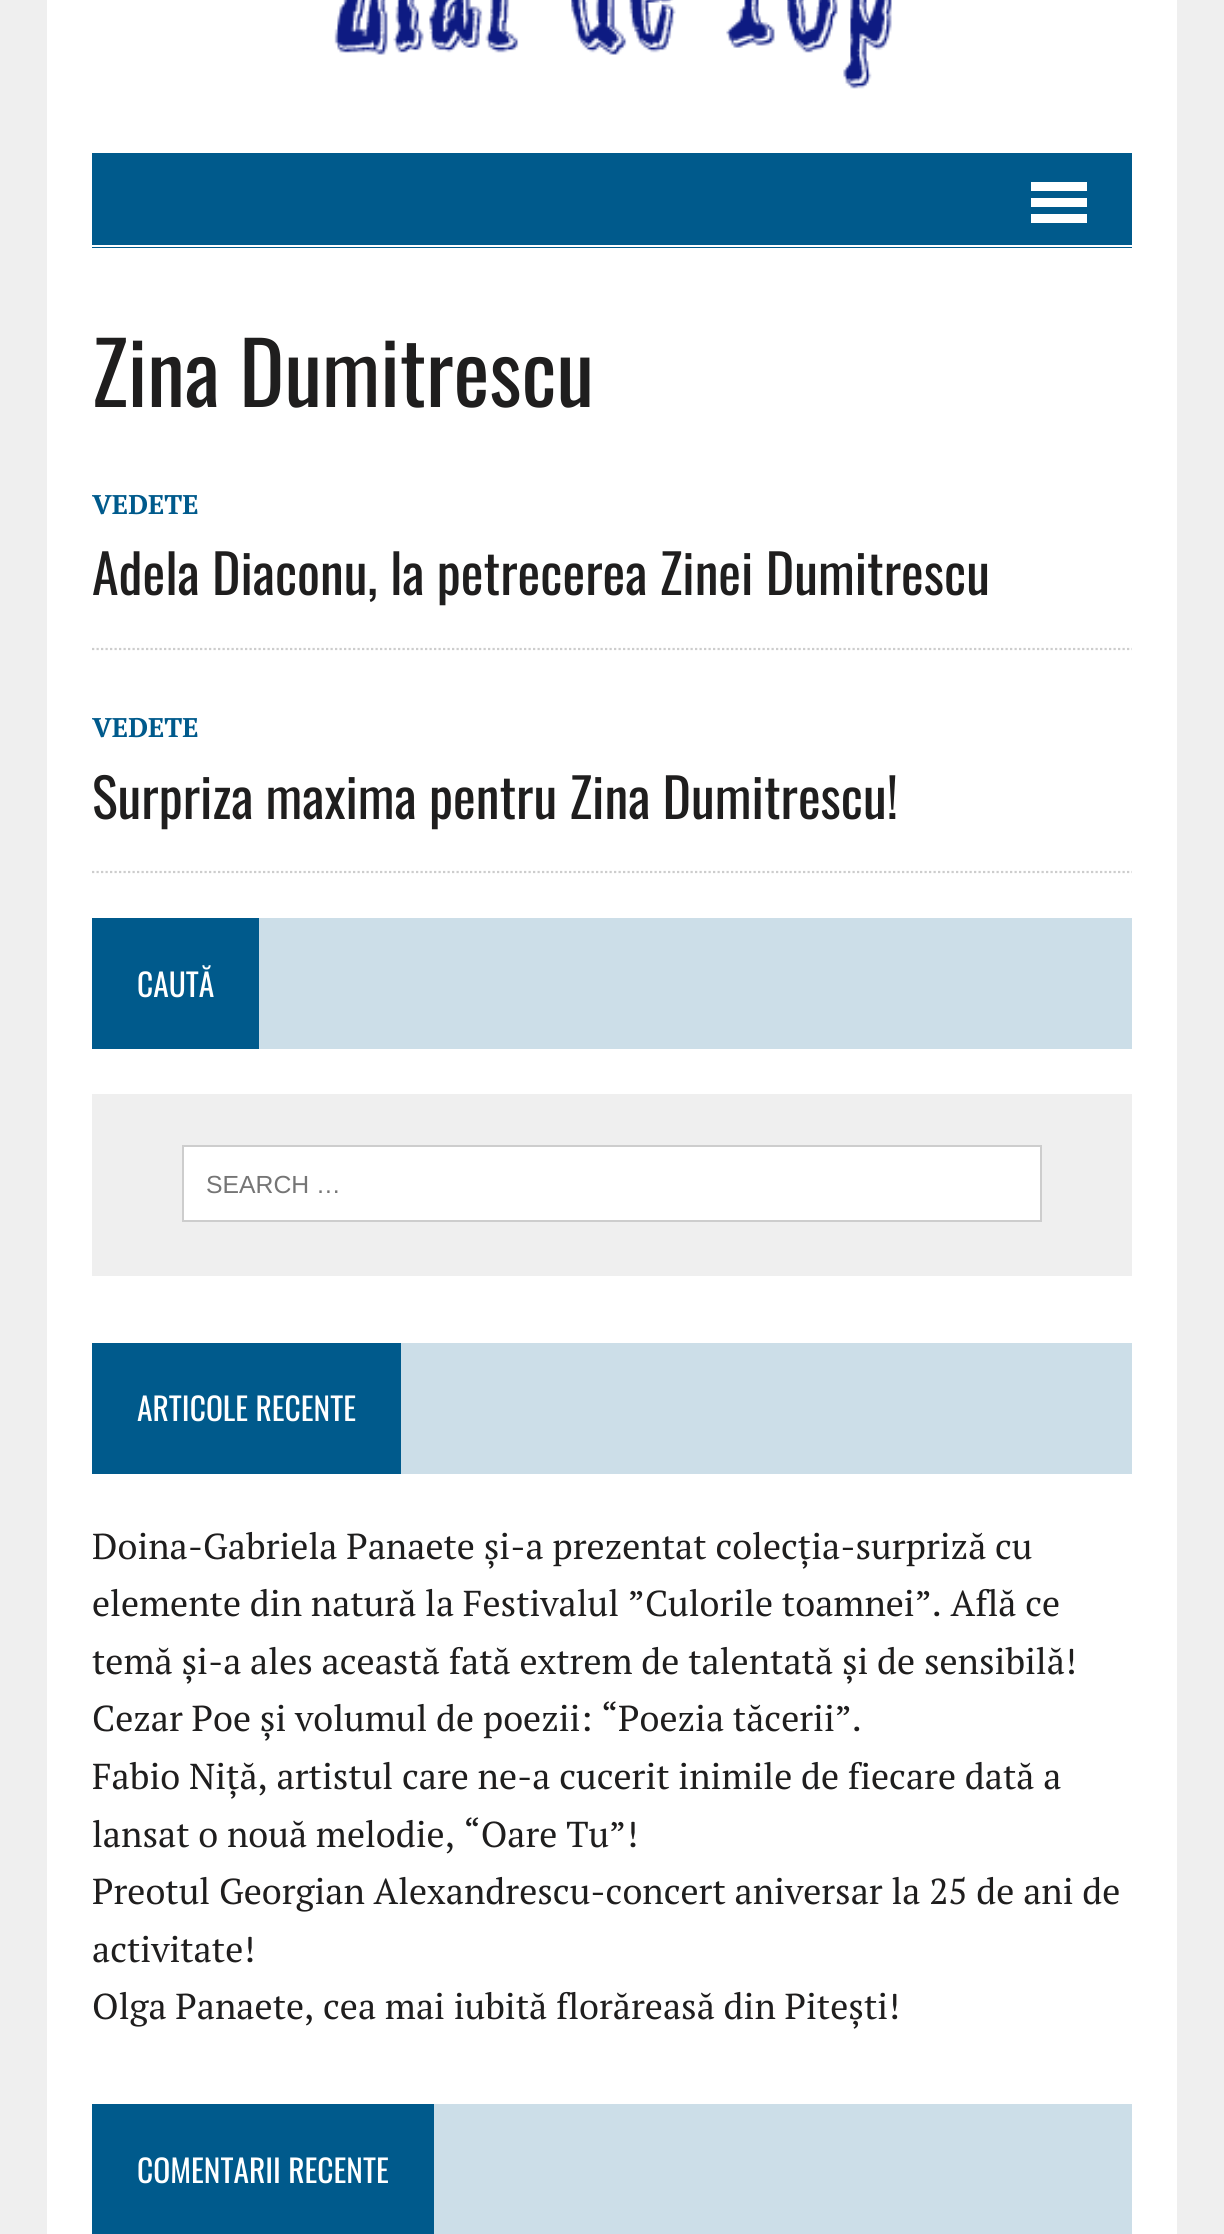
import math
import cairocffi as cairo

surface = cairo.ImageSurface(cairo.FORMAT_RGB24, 1224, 2234)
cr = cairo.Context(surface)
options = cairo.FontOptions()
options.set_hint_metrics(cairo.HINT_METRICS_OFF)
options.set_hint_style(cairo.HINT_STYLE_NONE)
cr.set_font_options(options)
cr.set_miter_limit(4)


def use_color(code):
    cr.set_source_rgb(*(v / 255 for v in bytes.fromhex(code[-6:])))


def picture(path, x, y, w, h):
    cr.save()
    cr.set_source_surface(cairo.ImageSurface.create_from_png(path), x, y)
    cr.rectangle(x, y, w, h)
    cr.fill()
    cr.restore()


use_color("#efefef")
cr.paint()
use_color("#ffffff")
cr.rectangle(47, 0, 1130, 2234)
cr.fill()
picture("img1.png", 334, 0, 558, 89)
use_color("#005a8c")
cr.rectangle(92, 153, 1040, 95)
cr.fill()
use_color("#ffffff")
cr.rectangle(92, 245, 1040, 2)
cr.fill()
cr.rectangle(1031, 182, 56, 9)
cr.fill()
cr.rectangle(1031, 198, 56, 9)
cr.fill()
cr.rectangle(1031, 214, 56, 9)
cr.fill()
cr.select_font_face("Oswald")
cr.set_font_size(85.5)
use_color("#1f1e1e")
cr.move_to(92, 407)
cr.show_text("Zina Dumitrescu")
cr.select_font_face("PT Serif", cairo.FONT_SLANT_NORMAL, cairo.FONT_WEIGHT_BOLD)
cr.set_font_size(27)
use_color("#005a8c")
cr.move_to(92, 514)
cr.show_text("VEDETE")
cr.select_font_face("Oswald")
cr.set_font_size(54)
use_color("#1f1e1e")
cr.move_to(92, 595)
cr.show_text("Adela Diaconu, la petrecerea Zinei Dumitrescu")
cr.new_path()
cr.move_to(92, 649)
cr.line_to(1132, 649)
use_color("#cdcdcd")
cr.set_line_width(2.2)
cr.set_dash([2.25, 2.25])
cr.stroke()
cr.select_font_face("PT Serif", cairo.FONT_SLANT_NORMAL, cairo.FONT_WEIGHT_BOLD)
cr.set_font_size(27)
use_color("#005a8c")
cr.move_to(92, 737)
cr.show_text("VEDETE")
cr.select_font_face("Oswald")
cr.set_font_size(54)
use_color("#1f1e1e")
cr.move_to(92, 819)
cr.show_text("Surpriza maxima pentru Zina Dumitrescu!")
cr.new_path()
cr.move_to(92, 872)
cr.line_to(1132, 872)
use_color("#cdcdcd")
cr.stroke()
use_color("#ccdee8")
cr.rectangle(259, 918, 873, 131)
cr.fill()
use_color("#005a8c")
cr.rectangle(92, 918, 167, 131)
cr.fill()
cr.set_font_size(31.5)
use_color("#ffffff")
cr.move_to(137, 997)
cr.show_text("CAUTĂ")
use_color("#efefef")
cr.rectangle(92, 1094, 1040, 182)
cr.fill()
use_color("#ffffff")
cr.rectangle(183, 1146, 858, 75)
cr.fill_preserve()
use_color("#cdcdcd")
cr.set_line_width(2)
cr.set_dash([])
cr.stroke()
cr.select_font_face("Liberation Sans")
cr.set_font_size(24.75)
use_color("#757575")
cr.move_to(206, 1193)
cr.show_text("SEARCH …")
use_color("#ccdee8")
cr.rectangle(401, 1343, 731, 131)
cr.fill()
use_color("#005a8c")
cr.rectangle(92, 1343, 309, 131)
cr.fill()
cr.select_font_face("Oswald")
cr.set_font_size(31.5)
use_color("#ffffff")
cr.move_to(137, 1421)
cr.show_text("ARTICOLE RECENTE")
cr.select_font_face("PT Serif")
cr.set_font_size(36)
use_color("#1f1e1e")
cr.move_to(92, 1559)
cr.show_text("Doina-Gabriela Panaete și-a prezentat colecția-surpriză cu")
cr.move_to(92, 1616)
cr.show_text("elemente din natură la Festivalul ”Culorile toamnei”. Află ce")
cr.move_to(92, 1674)
cr.show_text("temă și-a ales această fată extrem de talentată și de sensibilă!")
cr.move_to(92, 1731)
cr.show_text("Cezar Poe și volumul de poezii: “Poezia tăcerii”.")
cr.move_to(92, 1789)
cr.show_text("Fabio Niță, artistul care ne-a cucerit inimile de fiecare dată a")
cr.move_to(92, 1847)
cr.show_text("lansat o nouă melodie, “Oare Tu”!")
cr.move_to(92, 1904)
cr.show_text("Preotul Georgian Alexandrescu-concert aniversar la 25 de ani de")
cr.move_to(92, 1962)
cr.show_text("activitate!")
cr.move_to(92, 2019)
cr.show_text("Olga Panaete, cea mai iubită florăreasă din Pitești!")
use_color("#ccdee8")
cr.rectangle(434, 2104, 698, 130)
cr.fill()
use_color("#005a8c")
cr.rectangle(92, 2104, 342, 130)
cr.fill()
cr.select_font_face("Oswald")
cr.set_font_size(31.5)
use_color("#ffffff")
cr.move_to(137, 2183)
cr.show_text("COMENTARII RECENTE")
surface.write_to_png("result.png")
